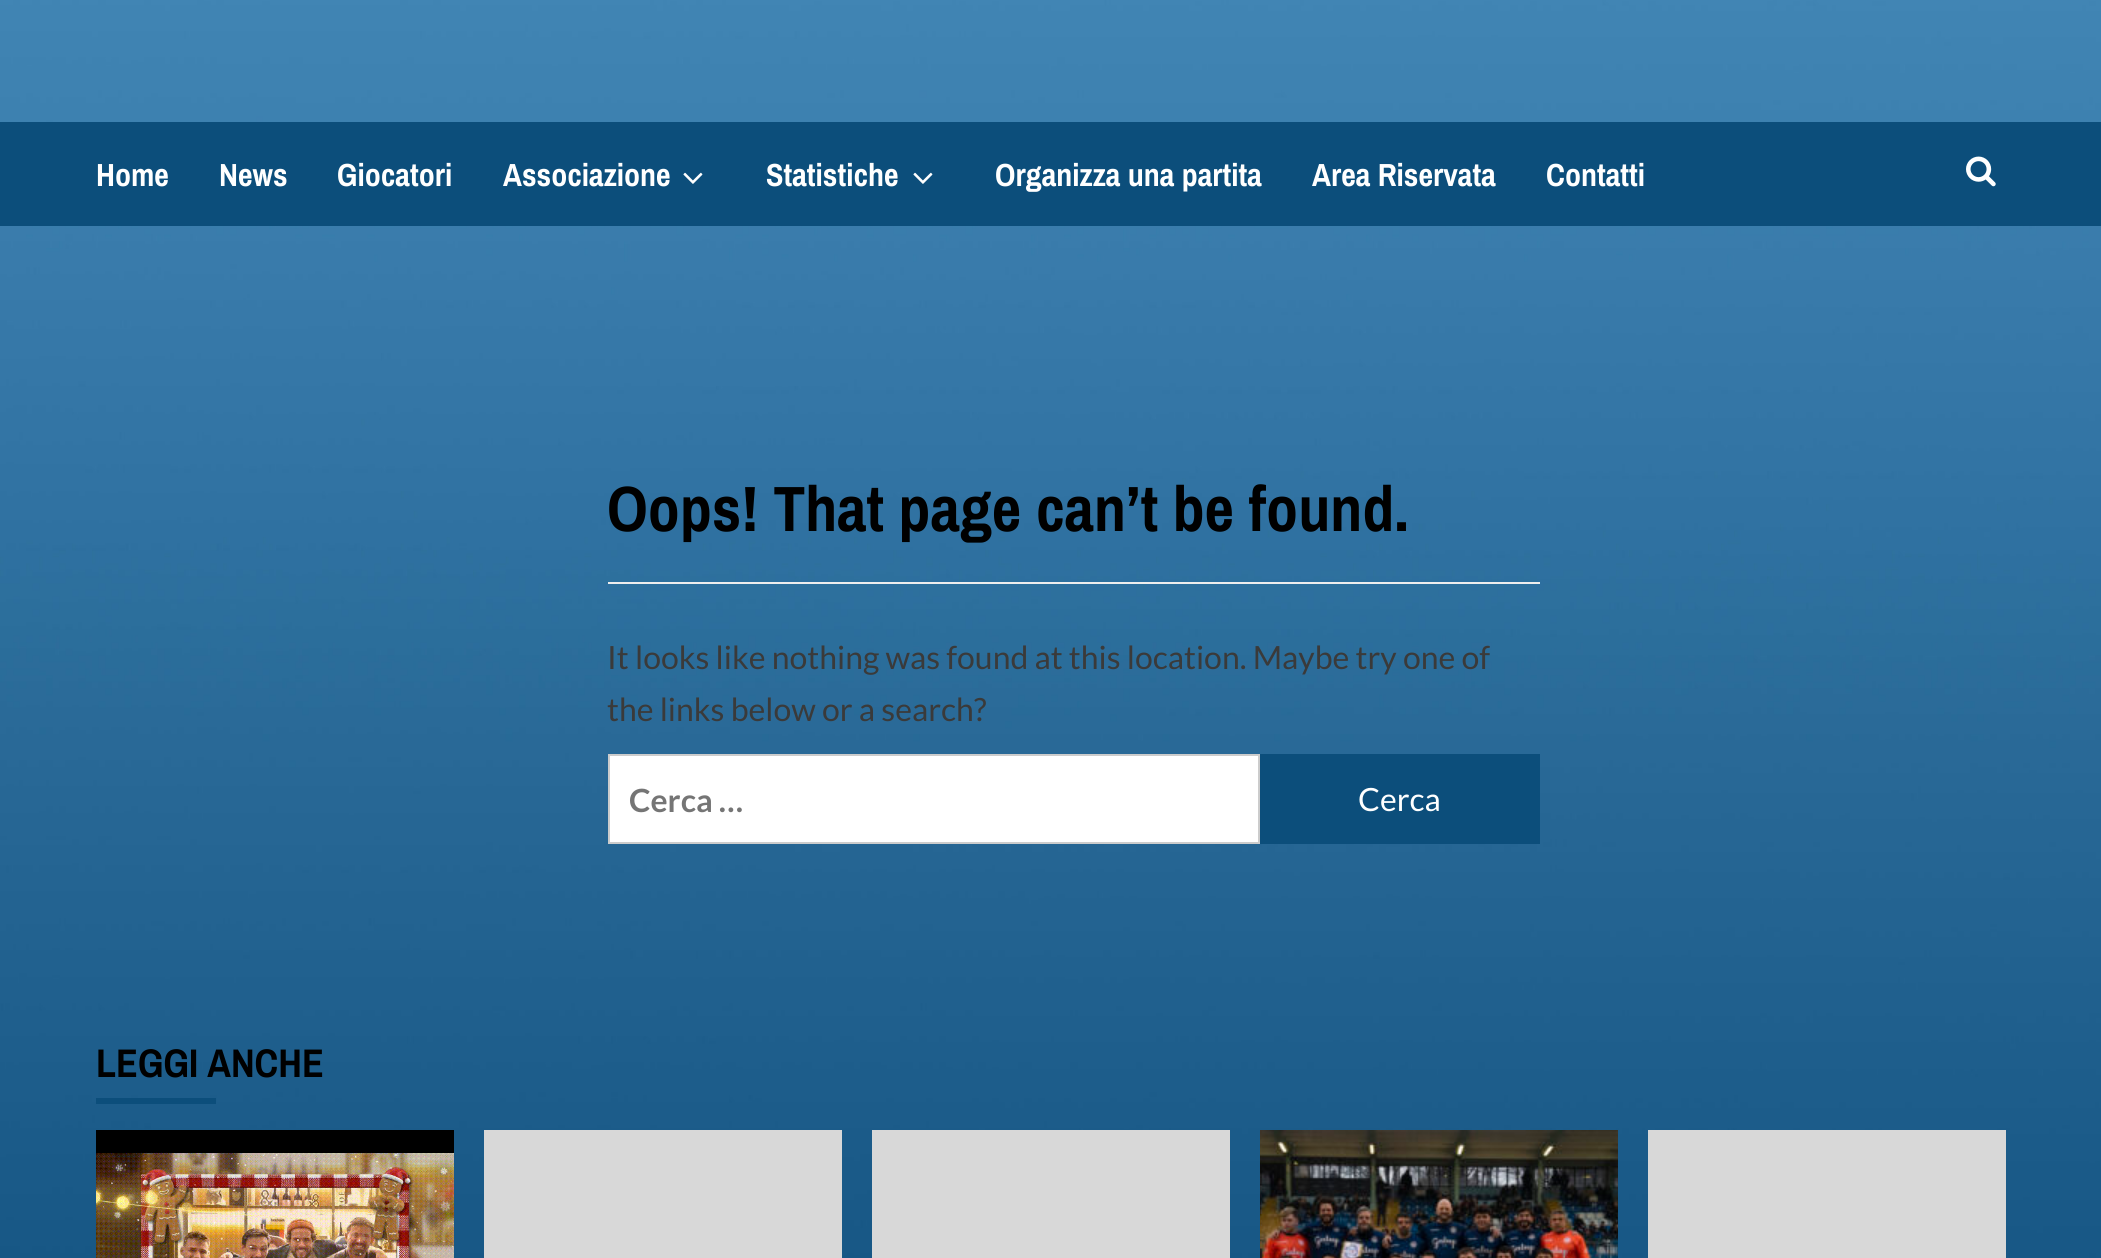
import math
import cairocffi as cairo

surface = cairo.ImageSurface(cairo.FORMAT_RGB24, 2101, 1258)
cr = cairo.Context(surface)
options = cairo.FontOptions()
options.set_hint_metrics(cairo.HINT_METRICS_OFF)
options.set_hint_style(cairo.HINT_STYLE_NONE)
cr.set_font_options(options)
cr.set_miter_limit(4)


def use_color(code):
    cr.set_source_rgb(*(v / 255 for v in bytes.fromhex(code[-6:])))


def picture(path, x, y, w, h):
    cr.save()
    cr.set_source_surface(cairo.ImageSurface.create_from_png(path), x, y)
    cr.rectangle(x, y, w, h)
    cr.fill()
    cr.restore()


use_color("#ffffff")
cr.paint()
picture("img1.png", 0, 0, 2101, 1258)
use_color("#0c4e7b")
cr.rectangle(0, 122, 2101, 104)
cr.fill()
cr.select_font_face("Archivo Narrow", cairo.FONT_SLANT_NORMAL, cairo.FONT_WEIGHT_BOLD)
cr.set_font_size(32)
use_color("#ffffff")
cr.move_to(96, 186)
cr.show_text("Home")
cr.move_to(219, 186)
cr.show_text("News")
cr.move_to(337, 186)
cr.show_text("Giocatori")
cr.move_to(503, 186)
cr.show_text("Associazione")
picture("img2.png", 683, 172, 20, 12)
cr.move_to(766, 186)
cr.show_text("Statistiche")
picture("img2.png", 913, 172, 20, 12)
cr.move_to(995, 186)
cr.show_text("Organizza una partita")
cr.move_to(1312, 186)
cr.show_text("Area Riservata")
cr.move_to(1546, 186)
cr.show_text("Contatti")
picture("img3.png", 1966, 156, 30, 31)
use_color("#eeeeee")
cr.rectangle(608, 582, 932, 2)
cr.fill()
cr.set_font_size(64)
use_color("#000000")
cr.move_to(607, 531)
cr.show_text("Oops! That page can’t be found.")
cr.select_font_face("Lato")
cr.set_font_size(32)
use_color("#3a3a3a")
cr.move_to(607, 669)
cr.show_text("It looks like nothing was found at this location. Maybe try one of")
cr.move_to(607, 721)
cr.show_text("the links below or a search?")
use_color("#ffffff")
cr.rectangle(609, 755, 650, 88)
cr.fill_preserve()
use_color("#cccccc")
cr.stroke()
cr.select_font_face("Lato", cairo.FONT_SLANT_NORMAL, cairo.FONT_WEIGHT_BOLD)
use_color("#757575")
cr.move_to(629, 812)
cr.show_text("Cerca …")
use_color("#0c4e7b")
cr.rectangle(1260, 754, 280, 90)
cr.fill()
cr.select_font_face("Lato")
use_color("#ffffff")
cr.move_to(1358, 811)
cr.show_text("Cerca")
cr.select_font_face("Archivo Narrow", cairo.FONT_SLANT_NORMAL, cairo.FONT_WEIGHT_BOLD)
cr.set_font_size(40)
use_color("#000000")
cr.move_to(96, 1077)
cr.show_text("LEGGI ANCHE")
use_color("#0c4e7b")
cr.rectangle(96, 1098, 120, 6)
cr.fill()
picture("img4.png", 96, 1130, 358, 128)
use_color("#d8d8d8")
cr.rectangle(484, 1130, 358, 128)
cr.fill()
cr.rectangle(872, 1130, 358, 128)
cr.fill()
picture("img5.png", 1260, 1130, 358, 128)
cr.rectangle(1648, 1130, 358, 128)
cr.fill()
surface.write_to_png("result.png")
